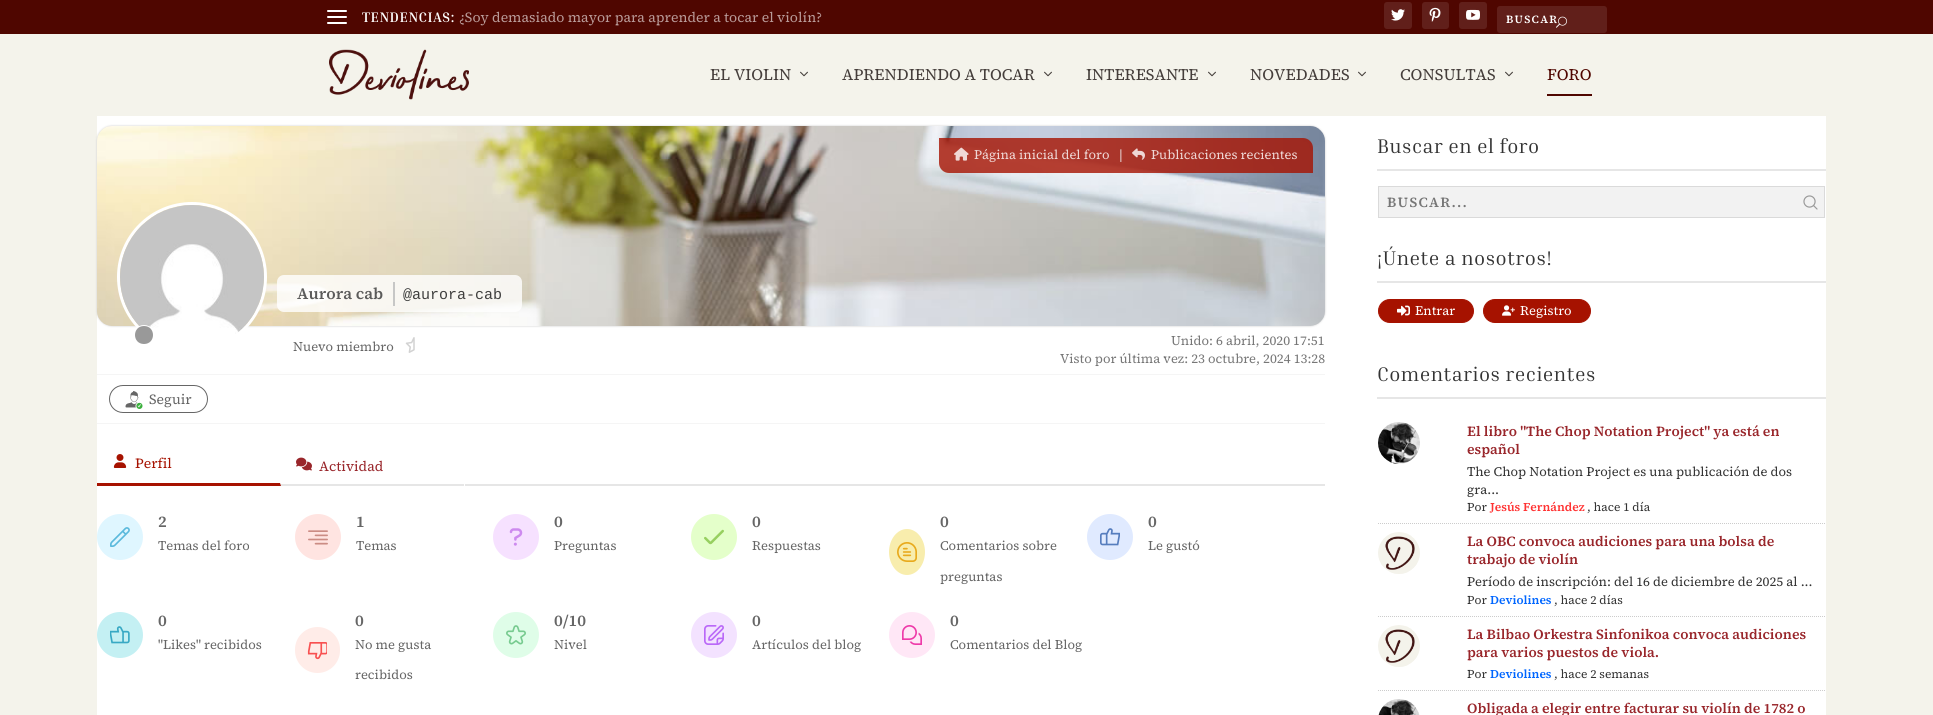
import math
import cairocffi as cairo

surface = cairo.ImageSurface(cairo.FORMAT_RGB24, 1933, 715)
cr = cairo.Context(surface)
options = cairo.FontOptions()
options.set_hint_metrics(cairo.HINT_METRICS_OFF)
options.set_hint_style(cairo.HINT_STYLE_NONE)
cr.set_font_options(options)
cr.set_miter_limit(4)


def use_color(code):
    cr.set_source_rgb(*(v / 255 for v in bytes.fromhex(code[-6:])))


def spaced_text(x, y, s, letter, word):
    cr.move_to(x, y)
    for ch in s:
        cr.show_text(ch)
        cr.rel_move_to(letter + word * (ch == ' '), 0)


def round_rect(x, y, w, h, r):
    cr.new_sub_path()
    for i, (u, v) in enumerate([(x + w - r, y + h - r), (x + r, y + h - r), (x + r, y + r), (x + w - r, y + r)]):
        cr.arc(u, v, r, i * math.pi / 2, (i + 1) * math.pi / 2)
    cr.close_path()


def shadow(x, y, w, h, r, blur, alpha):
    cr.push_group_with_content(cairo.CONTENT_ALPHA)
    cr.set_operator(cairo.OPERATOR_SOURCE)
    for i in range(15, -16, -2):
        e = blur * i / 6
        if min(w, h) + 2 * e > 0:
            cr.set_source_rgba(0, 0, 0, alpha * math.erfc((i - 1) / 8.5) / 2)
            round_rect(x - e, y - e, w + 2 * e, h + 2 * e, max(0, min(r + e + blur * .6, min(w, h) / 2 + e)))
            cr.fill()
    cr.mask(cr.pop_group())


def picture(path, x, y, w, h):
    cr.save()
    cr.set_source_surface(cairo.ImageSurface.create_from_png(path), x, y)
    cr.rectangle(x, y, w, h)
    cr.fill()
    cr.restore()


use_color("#f4f3eb")
cr.paint()
use_color("#4f0600")
cr.rectangle(0, 0, 1933, 34)
cr.fill()
use_color("#ffffff")
round_rect(327, 10, 20, 2, 1)
cr.fill()
round_rect(327, 16, 20, 2, 1)
cr.fill()
round_rect(327, 22, 20, 2, 1)
cr.fill()
cr.select_font_face("Inria Serif", cairo.FONT_SLANT_NORMAL, cairo.FONT_WEIGHT_BOLD)
cr.set_font_size(14)
spaced_text(362, 22, "TENDENCIAS:", 0.5, 0)
cr.select_font_face("Source Serif 4")
use_color("#b99b99")
cr.move_to(459, 22)
cr.show_text("¿Soy demasiado mayor para aprender a tocar el violín?")
use_color("#611f1a")
round_rect(1384, 2, 28, 27, 3)
cr.fill()
picture("img1.png", 1391, 9, 14, 12)
round_rect(1422, 2, 27, 27, 3)
cr.fill()
picture("img2.png", 1429, 7, 12, 15)
round_rect(1459, 2, 28, 27, 3)
cr.fill()
picture("img3.png", 1466, 9, 14, 11)
round_rect(1497, 6, 110, 27, 3)
cr.fill()
cr.select_font_face("Source Serif 4 SemiBold")
cr.set_font_size(11)
use_color("#ffffff")
spaced_text(1506, 23, "BUSCAR", 1.25, 0)
picture("img4.png", 1556, 16, 11, 12)
picture("img5.png", 329, 49, 140, 51)
cr.select_font_face("Source Serif 4")
cr.set_font_size(16)
use_color("#453e3b")
cr.move_to(710, 80)
cr.show_text("EL VIOLIN")
picture("img6.png", 800, 71, 8, 6)
cr.move_to(842, 80)
cr.show_text("APRENDIENDO A TOCAR")
picture("img6.png", 1044, 71, 8, 6)
cr.move_to(1086, 80)
cr.show_text("INTERESANTE")
picture("img6.png", 1208, 71, 8, 6)
cr.move_to(1250, 80)
cr.show_text("NOVEDADES")
picture("img6.png", 1358, 71, 8, 6)
cr.move_to(1400, 80)
cr.show_text("CONSULTAS")
picture("img6.png", 1505, 71, 8, 6)
use_color("#4f0600")
cr.move_to(1547, 80)
cr.show_text("FORO")
cr.rectangle(1547, 94, 45, 2)
cr.fill()
use_color("#ffffff")
cr.rectangle(97, 116, 1729, 599)
cr.fill()
use_color("#cccccc")
shadow(97, 126, 1228, 200, 15, 1, 1)
picture("img7.png", 97, 126, 1228, 200)
cr.set_source_rgba(0.651, 0.071, 0, 0.8)
cr.new_path()
cr.move_to(939, 138)
cr.line_to(1303, 138)
cr.curve_to(1308.5, 138, 1313, 142.5, 1313, 148)
cr.line_to(1313, 173)
cr.line_to(949, 173)
cr.curve_to(943.5, 173, 939, 168.5, 939, 163)
cr.close_path()
cr.fill()
picture("img8.png", 954, 147, 15, 14)
cr.set_font_size(13)
use_color("#efd7d5")
cr.move_to(974, 159)
cr.show_text("Página inicial del foro")
use_color("#f0f3f6")
cr.move_to(1119, 159)
cr.show_text("|")
picture("img9.png", 1132, 148, 13, 12)
use_color("#efd7d5")
cr.move_to(1151, 159)
cr.show_text("Publicaciones recientes")
cr.new_path()
cr.arc(192, 277, 73.5, 0, 2 * math.pi)
use_color("#ffffff")
cr.set_line_width(3)
cr.stroke()
picture("img10.png", 120, 205, 144, 129)
cr.arc(144, 336, 10, 0, 2 * math.pi)
cr.set_line_width(2)
cr.stroke()
use_color("#999999")
cr.new_path()
cr.move_to(144, 344)
cr.curve_to(156, 344, 156, 326, 144, 326)
cr.curve_to(132, 326, 132, 344, 144, 344)
cr.close_path()
cr.fill()
cr.set_source_rgba(1, 1, 1, 0.8)
round_rect(277, 275, 245, 37, 7)
cr.fill()
cr.select_font_face("Source Serif 4 SemiBold")
cr.set_font_size(16)
use_color("#5b5b5a")
cr.move_to(297, 299)
cr.show_text("Aurora cab")
use_color("#c7c7c6")
cr.rectangle(393, 282, 2, 24)
cr.fill()
cr.select_font_face("Liberation Mono")
cr.set_font_size(15)
use_color("#3f3f3e")
cr.move_to(403, 299)
cr.show_text("@aurora-cab")
cr.select_font_face("Source Serif 4")
cr.set_font_size(13)
use_color("#666666")
cr.move_to(293, 351)
cr.show_text("Nuevo miembro")
picture("img11.png", 405, 337, 10, 16)
use_color("#777777")
cr.move_to(1171, 345)
cr.show_text("Unido: 6 abril, 2020 17:51")
cr.move_to(1060, 363)
cr.show_text("Visto por última vez: 23 octubre, 2024 13:28")
use_color("#f5f5f5")
cr.rectangle(97, 374, 1228, 1)
cr.fill()
cr.rectangle(97, 423, 1228, 1)
cr.fill()
round_rect(109.5, 385.5, 98, 27, 13.5)
use_color("#666666")
cr.set_line_width(1)
cr.stroke()
picture("img12.png", 125, 391, 18, 18)
cr.set_font_size(14)
cr.move_to(149, 404)
cr.show_text("Seguir")
use_color("#e6e6e6")
cr.rectangle(280, 484, 1045, 2)
cr.fill()
use_color("#ffffff")
cr.new_path()
cr.move_to(281, 444)
cr.line_to(281, 486)
cr.line_to(280, 483)
cr.line_to(280, 444)
cr.close_path()
cr.fill()
use_color("#a61200")
cr.new_path()
cr.move_to(281, 486)
cr.line_to(97, 486)
cr.line_to(97, 483)
cr.line_to(280, 483)
cr.close_path()
cr.fill()
picture("img13.png", 113, 454, 14, 14)
cr.move_to(135, 468)
cr.show_text("Perfil")
use_color("#ffffff")
cr.rectangle(464, 484, 1, 2)
cr.fill()
picture("img14.png", 296, 457, 16, 14)
use_color("#99262b")
cr.move_to(319, 471)
cr.show_text("Actividad")
use_color("#dff6ff")
cr.new_path()
cr.arc(120, 537, 23, 0, 2 * math.pi)
cr.fill()
picture("img15.png", 110, 527, 20, 20)
cr.select_font_face("Source Serif 4 SemiBold")
cr.set_font_size(16)
use_color("#666666")
cr.move_to(158, 527)
cr.show_text("2")
cr.select_font_face("Source Serif 4")
cr.set_font_size(13)
cr.move_to(158, 550)
cr.show_text("Temas del foro")
use_color("#ffe4e1")
cr.new_path()
cr.arc(318, 537, 23, 0, 2 * math.pi)
cr.fill()
picture("img16.png", 308, 530, 20, 15)
cr.select_font_face("Source Serif 4 SemiBold")
cr.set_font_size(16)
use_color("#666666")
cr.move_to(356, 527)
cr.show_text("1")
cr.select_font_face("Source Serif 4")
cr.set_font_size(13)
cr.move_to(356, 550)
cr.show_text("Temas")
use_color("#f6e1ff")
cr.new_path()
cr.arc(516, 537, 23, 0, 2 * math.pi)
cr.fill()
picture("img17.png", 509, 528, 14, 18)
cr.select_font_face("Source Serif 4 SemiBold")
cr.set_font_size(16)
use_color("#666666")
cr.move_to(554, 527)
cr.show_text("0")
cr.select_font_face("Source Serif 4")
cr.set_font_size(13)
cr.move_to(554, 550)
cr.show_text("Preguntas")
use_color("#e4ffca")
cr.new_path()
cr.arc(714, 537, 23, 0, 2 * math.pi)
cr.fill()
picture("img18.png", 704, 529, 20, 16)
cr.select_font_face("Source Serif 4 SemiBold")
cr.set_font_size(16)
use_color("#666666")
cr.move_to(752, 527)
cr.show_text("0")
cr.select_font_face("Source Serif 4")
cr.set_font_size(13)
cr.move_to(752, 550)
cr.show_text("Respuestas")
use_color("#f8edad")
cr.new_path()
cr.move_to(907, 529)
cr.curve_to(917, 529, 925, 539.5, 925, 552)
cr.curve_to(925, 564.5, 917, 575, 907, 575)
cr.curve_to(897, 575, 889, 564.5, 889, 552)
cr.curve_to(889, 539.5, 897, 529, 907, 529)
cr.close_path()
cr.fill()
picture("img19.png", 897, 542, 20, 20)
cr.select_font_face("Source Serif 4 SemiBold")
cr.set_font_size(16)
use_color("#666666")
cr.move_to(940, 527)
cr.show_text("0")
cr.select_font_face("Source Serif 4")
cr.set_font_size(13)
cr.move_to(940, 550)
cr.show_text("Comentarios sobre")
cr.move_to(940, 581)
cr.show_text("preguntas")
use_color("#e0eaff")
cr.new_path()
cr.arc(1110, 537, 23, 0, 2 * math.pi)
cr.fill()
picture("img20.png", 1100, 528, 20, 18)
cr.select_font_face("Source Serif 4 SemiBold")
cr.set_font_size(16)
use_color("#666666")
cr.move_to(1148, 527)
cr.show_text("0")
cr.select_font_face("Source Serif 4")
cr.set_font_size(13)
cr.move_to(1148, 550)
cr.show_text("Le gustó")
use_color("#c4f0f3")
cr.new_path()
cr.arc(120, 635, 23, 0, 2 * math.pi)
cr.fill()
picture("img21.png", 110, 626, 20, 18)
cr.select_font_face("Source Serif 4 SemiBold")
cr.set_font_size(16)
use_color("#666666")
cr.move_to(158, 626)
cr.show_text("0")
cr.select_font_face("Source Serif 4")
cr.set_font_size(13)
cr.move_to(158, 649)
cr.show_text("\"Likes\" recibidos")
use_color("#ffece8")
round_rect(295, 627, 45, 46, 22.5)
cr.fill()
picture("img22.png", 307, 642, 20, 18)
cr.select_font_face("Source Serif 4 SemiBold")
cr.set_font_size(16)
use_color("#666666")
cr.move_to(355, 626)
cr.show_text("0")
cr.select_font_face("Source Serif 4")
cr.set_font_size(13)
cr.move_to(355, 649)
cr.show_text("No me gusta")
cr.move_to(355, 679)
cr.show_text("recibidos")
use_color("#dffde8")
cr.new_path()
cr.arc(516, 635, 23, 0, 2 * math.pi)
cr.fill()
picture("img23.png", 506, 625, 20, 20)
cr.select_font_face("Source Serif 4 SemiBold")
cr.set_font_size(16)
use_color("#666666")
cr.move_to(554, 626)
cr.show_text("0/10")
cr.select_font_face("Source Serif 4")
cr.set_font_size(13)
cr.move_to(554, 649)
cr.show_text("Nivel")
use_color("#f3e2ff")
cr.new_path()
cr.arc(714, 635, 23, 0, 2 * math.pi)
cr.fill()
picture("img24.png", 704, 625, 20, 20)
cr.select_font_face("Source Serif 4 SemiBold")
cr.set_font_size(16)
use_color("#666666")
cr.move_to(752, 626)
cr.show_text("0")
cr.select_font_face("Source Serif 4")
cr.set_font_size(13)
cr.move_to(752, 649)
cr.show_text("Artículos del blog")
use_color("#ffe7f6")
cr.new_path()
cr.arc(912, 635, 23, 0, 2 * math.pi)
cr.fill()
picture("img25.png", 902, 625, 20, 20)
cr.select_font_face("Source Serif 4 SemiBold")
cr.set_font_size(16)
use_color("#666666")
cr.move_to(950, 626)
cr.show_text("0")
cr.select_font_face("Source Serif 4")
cr.set_font_size(13)
cr.move_to(950, 649)
cr.show_text("Comentarios del Blog")
use_color("#e6e6e6")
cr.rectangle(1377, 169, 449, 2)
cr.fill()
cr.select_font_face("Inria Serif")
cr.set_font_size(20)
use_color("#343434")
spaced_text(1377, 153, "Buscar en el foro", 0.5, 0)
use_color("#f2f2f2")
cr.rectangle(1378.5, 186.5, 446, 31)
cr.fill_preserve()
use_color("#dadada")
cr.stroke()
cr.select_font_face("Source Serif 4 SemiBold")
cr.set_font_size(14)
use_color("#777777")
spaced_text(1387, 207, "BUSCAR...", 1.25, 0)
picture("img26.png", 1803, 195, 15, 15)
use_color("#e6e6e6")
cr.rectangle(1377, 281, 449, 2)
cr.fill()
cr.select_font_face("Inria Serif")
cr.set_font_size(20)
use_color("#343434")
spaced_text(1377, 265, "¡Únete a nosotros!", 0.5, 0)
use_color("#a61200")
round_rect(1378.5, 299.5, 95, 23, 11.5)
cr.fill_preserve()
cr.stroke()
picture("img27.png", 1397, 305, 13, 11)
cr.select_font_face("Source Serif 4")
cr.set_font_size(13)
use_color("#ffffff")
cr.move_to(1415, 315)
cr.show_text("Entrar")
use_color("#a61200")
round_rect(1483.5, 299.5, 107, 23, 11.5)
cr.fill_preserve()
cr.stroke()
picture("img28.png", 1502, 305, 13, 11)
use_color("#ffffff")
cr.move_to(1520, 315)
cr.show_text("Registro")
use_color("#e6e6e6")
cr.rectangle(1377, 397, 449, 2)
cr.fill()
cr.select_font_face("Inria Serif")
cr.set_font_size(20)
use_color("#343434")
spaced_text(1377, 381, "Comentarios recientes", 0.5, 0)
cr.new_path()
cr.move_to(1378, 523.5)
cr.line_to(1825, 523.5)
use_color("#cccccc")
cr.set_dash([1, 1])
cr.stroke()
picture("img29.png", 1378, 422, 42, 42)
cr.select_font_face("Source Serif 4 SemiBold")
cr.set_font_size(14)
use_color("#99262b")
cr.move_to(1467, 436)
cr.show_text("El libro \"The Chop Notation Project\" ya está en")
cr.move_to(1467, 454)
cr.show_text("español")
cr.select_font_face("Source Serif 4")
cr.set_font_size(13)
use_color("#343434")
cr.move_to(1467, 476)
cr.show_text("The Chop Notation Project es una publicación de dos")
cr.move_to(1467, 494)
cr.show_text("gra...")
cr.set_font_size(12)
cr.move_to(1467, 511)
cr.show_text("Por")
cr.select_font_face("Source Serif 4 SemiBold")
use_color("#ff3333")
cr.move_to(1490, 511)
cr.show_text("Jesús Fernández")
cr.select_font_face("Source Serif 4")
use_color("#343434")
cr.move_to(1587, 511)
cr.show_text(", hace 1 día")
cr.new_path()
cr.move_to(1378, 616.5)
cr.line_to(1825, 616.5)
use_color("#cccccc")
cr.stroke()
picture("img30.png", 1378, 532, 42, 42)
cr.select_font_face("Source Serif 4 SemiBold")
cr.set_font_size(14)
use_color("#99262b")
cr.move_to(1467, 546)
cr.show_text("La OBC convoca audiciones para una bolsa de")
cr.move_to(1467, 564)
cr.show_text("trabajo de violín")
cr.select_font_face("Source Serif 4")
cr.set_font_size(13)
use_color("#343434")
cr.move_to(1467, 586)
cr.show_text("Período de inscripción: del 16 de diciembre de 2025 al ...")
cr.set_font_size(12)
cr.move_to(1467, 604)
cr.show_text("Por")
cr.select_font_face("Source Serif 4 SemiBold")
use_color("#0066ff")
cr.move_to(1490, 604)
cr.show_text("Deviolines")
cr.select_font_face("Source Serif 4")
use_color("#343434")
cr.move_to(1554, 604)
cr.show_text(", hace 2 días")
cr.new_path()
cr.move_to(1378, 690.5)
cr.line_to(1825, 690.5)
use_color("#cccccc")
cr.stroke()
picture("img31.png", 1378, 625, 42, 42)
cr.select_font_face("Source Serif 4 SemiBold")
cr.set_font_size(14)
use_color("#99262b")
cr.move_to(1467, 639)
cr.show_text("La Bilbao Orkestra Sinfonikoa convoca audiciones")
cr.move_to(1467, 657)
cr.show_text("para varios puestos de viola.")
cr.select_font_face("Source Serif 4")
cr.set_font_size(12)
use_color("#343434")
cr.move_to(1467, 678)
cr.show_text("Por")
cr.select_font_face("Source Serif 4 SemiBold")
use_color("#0066ff")
cr.move_to(1490, 678)
cr.show_text("Deviolines")
cr.select_font_face("Source Serif 4")
use_color("#343434")
cr.move_to(1554, 678)
cr.show_text(", hace 2 semanas")
picture("img32.png", 1378, 699, 42, 16)
cr.select_font_face("Source Serif 4 SemiBold")
cr.set_font_size(14)
use_color("#99262b")
cr.move_to(1467, 713)
cr.show_text("Obligada a elegir entre facturar su violín de 1782 o")
surface.write_to_png("result.png")
